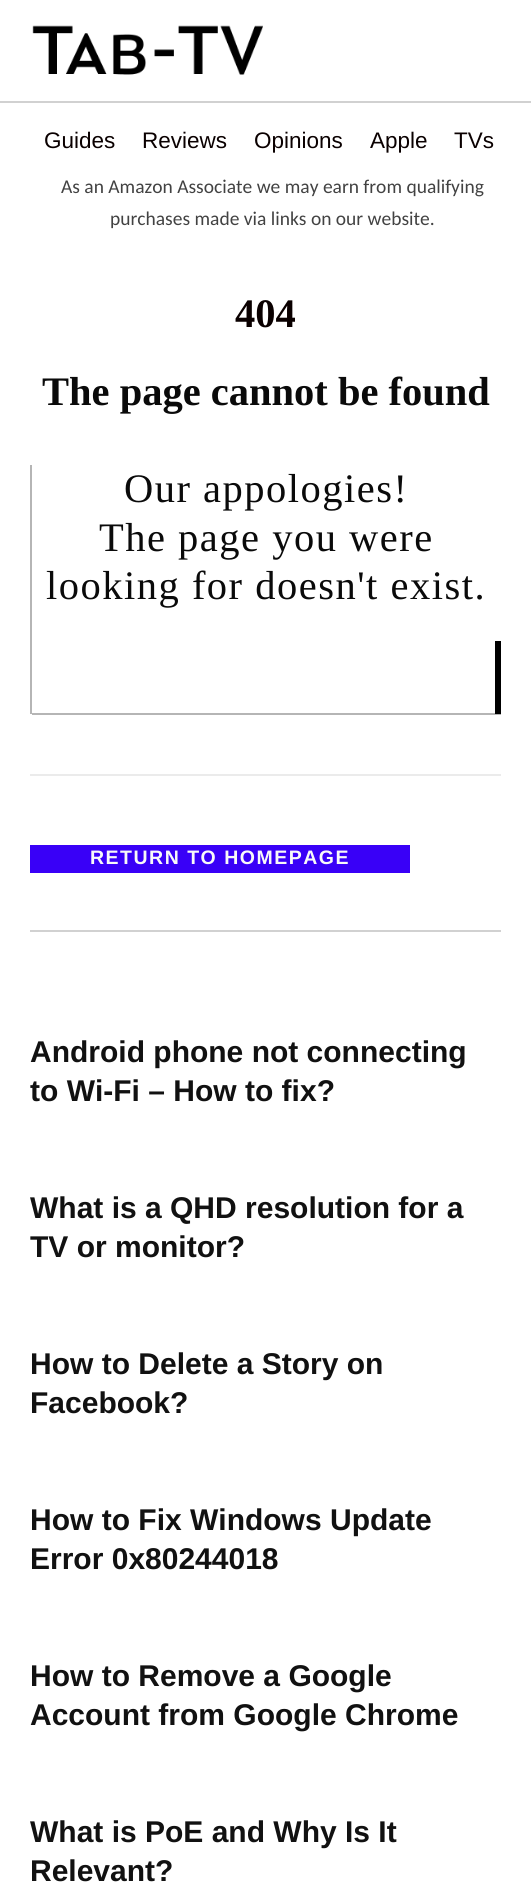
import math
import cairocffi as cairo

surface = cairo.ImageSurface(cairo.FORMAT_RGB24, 531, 1891)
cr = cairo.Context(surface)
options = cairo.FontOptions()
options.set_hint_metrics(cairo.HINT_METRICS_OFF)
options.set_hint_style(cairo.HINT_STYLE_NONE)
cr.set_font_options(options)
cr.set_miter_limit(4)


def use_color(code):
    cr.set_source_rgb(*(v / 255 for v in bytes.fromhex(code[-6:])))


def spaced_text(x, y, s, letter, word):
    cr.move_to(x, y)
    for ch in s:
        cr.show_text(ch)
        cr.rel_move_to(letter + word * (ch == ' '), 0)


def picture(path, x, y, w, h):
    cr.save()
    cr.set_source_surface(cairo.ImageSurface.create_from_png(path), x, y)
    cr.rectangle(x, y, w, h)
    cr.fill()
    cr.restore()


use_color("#ffffff")
cr.paint()
use_color("#d1d1d1")
cr.rectangle(0, 101, 531, 2)
cr.fill()
picture("img1.png", 32, 25, 231, 50)
cr.select_font_face("Liberation Sans")
cr.set_font_size(22.5)
use_color("#0a0000")
cr.move_to(44, 148)
cr.show_text("Guides")
cr.move_to(142, 148)
cr.show_text("Reviews")
cr.move_to(254, 148)
cr.show_text("Opinions")
cr.move_to(370, 148)
cr.show_text("Apple")
cr.move_to(454, 148)
cr.show_text("TVs")
cr.select_font_face("Carlito")
cr.set_font_size(19.5)
use_color("#424242")
cr.move_to(61, 193)
cr.show_text("As an Amazon Associate we may earn from qualifying")
cr.move_to(110, 225)
cr.show_text("purchases made via links on our website.")
cr.select_font_face("Liberation Serif", cairo.FONT_SLANT_NORMAL, cairo.FONT_WEIGHT_BOLD)
cr.set_font_size(40.5)
use_color("#0a0000")
cr.move_to(235, 327)
cr.show_text("404")
use_color("#0a0a0a")
cr.move_to(42, 405)
cr.show_text("The page cannot be found")
use_color("#b5b5b5")
cr.rectangle(30, 465, 2, 249)
cr.fill()
cr.select_font_face("Liberation Serif")
use_color("#0a0a0a")
spaced_text(124, 502, "Our appologies!", 1.5, 0)
spaced_text(99, 551, "The page you were", 1.5, 0)
spaced_text(46, 599, "looking for doesn't exist.", 1.5, 0)
use_color("#b5b5b5")
cr.rectangle(32, 713, 469, 2)
cr.fill()
use_color("#000000")
cr.rectangle(495, 641, 6, 73)
cr.fill()
use_color("#ebebeb")
cr.rectangle(30, 774, 471, 2)
cr.fill()
use_color("#3900f7")
cr.rectangle(30, 845, 380, 28)
cr.fill()
cr.select_font_face("Liberation Sans", cairo.FONT_SLANT_NORMAL, cairo.FONT_WEIGHT_BOLD)
cr.set_font_size(19.5)
use_color("#f8f9f9")
spaced_text(90, 864, "RETURN TO HOMEPAGE", 1.5, 0)
use_color("#d1d1d1")
cr.rectangle(30, 930, 471, 2)
cr.fill()
cr.set_font_size(30)
use_color("#111111")
cr.move_to(30, 1062)
cr.show_text("Android phone not connecting")
cr.move_to(30, 1101)
cr.show_text("to Wi-Fi – How to fix?")
cr.move_to(30, 1218)
cr.show_text("What is a QHD resolution for a")
cr.move_to(30, 1257)
cr.show_text("TV or monitor?")
cr.move_to(30, 1374)
cr.show_text("How to Delete a Story on")
cr.move_to(30, 1413)
cr.show_text("Facebook?")
cr.move_to(30, 1530)
cr.show_text("How to Fix Windows Update")
cr.move_to(30, 1569)
cr.show_text("Error 0x80244018")
cr.move_to(30, 1686)
cr.show_text("How to Remove a Google")
cr.move_to(30, 1725)
cr.show_text("Account from Google Chrome")
cr.move_to(30, 1842)
cr.show_text("What is PoE and Why Is It")
cr.move_to(30, 1881)
cr.show_text("Relevant?")
surface.write_to_png("result.png")
